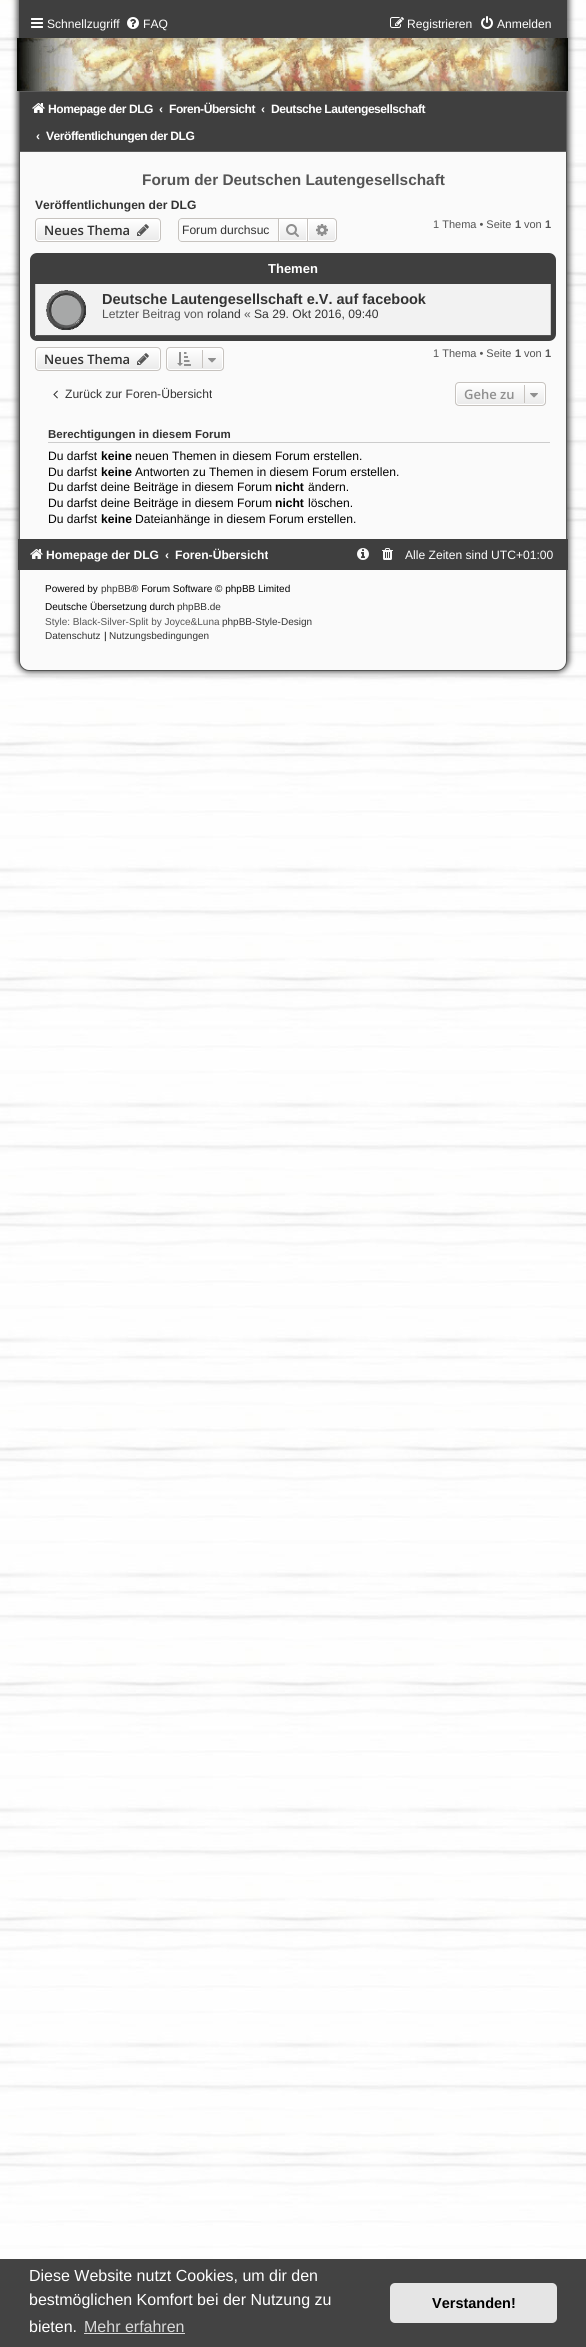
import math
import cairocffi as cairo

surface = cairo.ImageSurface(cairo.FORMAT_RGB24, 586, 2347)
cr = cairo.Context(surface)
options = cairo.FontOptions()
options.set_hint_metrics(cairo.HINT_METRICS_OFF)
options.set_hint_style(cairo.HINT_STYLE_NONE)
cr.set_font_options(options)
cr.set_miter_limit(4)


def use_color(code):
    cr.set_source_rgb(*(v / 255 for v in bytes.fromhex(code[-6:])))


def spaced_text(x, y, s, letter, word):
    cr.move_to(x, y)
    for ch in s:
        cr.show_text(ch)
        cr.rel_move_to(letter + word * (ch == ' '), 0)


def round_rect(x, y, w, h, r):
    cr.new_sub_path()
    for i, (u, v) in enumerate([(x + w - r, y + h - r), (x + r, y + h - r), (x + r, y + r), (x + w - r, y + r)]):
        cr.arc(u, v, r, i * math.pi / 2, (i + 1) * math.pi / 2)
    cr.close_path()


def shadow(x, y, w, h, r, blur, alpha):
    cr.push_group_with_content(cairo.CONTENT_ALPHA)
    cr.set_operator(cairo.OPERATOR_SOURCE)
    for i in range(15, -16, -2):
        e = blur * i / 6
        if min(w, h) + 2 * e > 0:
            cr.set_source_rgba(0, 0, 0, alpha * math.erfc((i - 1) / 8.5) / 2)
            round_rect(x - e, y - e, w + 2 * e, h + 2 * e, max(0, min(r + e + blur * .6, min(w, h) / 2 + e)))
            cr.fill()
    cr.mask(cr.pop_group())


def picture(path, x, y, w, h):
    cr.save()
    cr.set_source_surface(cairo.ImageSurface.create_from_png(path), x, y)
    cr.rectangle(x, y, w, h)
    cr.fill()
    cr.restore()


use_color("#ffffff")
cr.paint()
picture("img1.png", 0, 0, 586, 2259)
use_color("#020202")
shadow(17, -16, 552, 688, 12, 3, 0.7)
use_color("#fafafa")
cr.new_path()
cr.move_to(27, -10.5)
cr.line_to(559, -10.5)
cr.curve_to(563, -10.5, 566.5, -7, 566.5, -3)
cr.line_to(566.5, 661)
cr.curve_to(566.5, 666, 562, 670.5, 557, 670.5)
cr.line_to(29, 670.5)
cr.curve_to(24, 670.5, 19.5, 666, 19.5, 661)
cr.line_to(19.5, -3)
cr.curve_to(19.5, -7, 23, -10.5, 27, -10.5)
cr.close_path()
cr.fill_preserve()
use_color("#535453")
cr.set_line_width(1)
cr.stroke()
use_color("#3f3f3f")
cr.rectangle(19, 0, 548, 38)
cr.fill()
picture("img2.png", 31, 18, 12, 10)
cr.select_font_face("Liberation Sans")
cr.set_font_size(12.1)
use_color("#ffffff")
cr.move_to(47, 28)
cr.show_text("Schnellzugriff")
picture("img3.png", 127, 17, 12, 12)
cr.move_to(143, 28)
cr.show_text("FAQ")
picture("img4.png", 390, 17, 14, 11)
cr.move_to(407, 28)
cr.show_text("Registrieren")
picture("img5.png", 481, 16, 12, 13)
cr.move_to(497, 28)
cr.show_text("Anmelden")
picture("img6.png", 17, 38, 551, 53)
use_color("#3f3f3f")
cr.rectangle(19.5, 91.5, 547, 60)
cr.fill_preserve()
use_color("#5b5b5b")
cr.stroke()
picture("img7.png", 32, 103, 13, 10)
cr.select_font_face("Liberation Sans", cairo.FONT_SLANT_NORMAL, cairo.FONT_WEIGHT_BOLD)
use_color("#ffffff")
spaced_text(48, 113, "Homepage der DLG", -0.5, 0)
cr.move_to(159, 113)
cr.show_text("‹")
spaced_text(169, 113, "Foren-Übersicht", -0.5, 0)
cr.move_to(261, 113)
cr.show_text("‹")
spaced_text(271, 113, "Deutsche Lautengesellschaft", -0.5, 0)
cr.move_to(36, 140)
cr.show_text("‹")
spaced_text(46, 140, "Veröffentlichungen der DLG", -0.5, 0)
cr.set_font_size(15.4)
use_color("#555555")
cr.move_to(142, 185)
cr.show_text("Forum der Deutschen Lautengesellschaft")
cr.set_font_size(12.1)
use_color("#333333")
cr.move_to(35, 209)
cr.show_text("Veröffentlichungen der DLG")
cr.save()
round_rect(35, 218, 126, 24, 4)
cr.clip()
gradient = cairo.LinearGradient(98, 219, 98, 241)
gradient.add_color_stop_rgba(0, 1, 1, 1, 1)
gradient.add_color_stop_rgba(1, 0.914, 0.914, 0.914, 1)
cr.set_source(gradient)
cr.rectangle(35, 219, 126, 22)
cr.fill()
cr.restore()
round_rect(36.5, 219.5, 123, 21, 2.5)
use_color("#ffffff")
cr.stroke()
round_rect(35.5, 218.5, 125, 23, 3.5)
use_color("#c7c3bf")
cr.stroke()
cr.select_font_face("Open Sans SemiBold")
cr.set_font_size(13)
use_color("#333333")
cr.move_to(44, 235)
cr.show_text("Neues Thema")
picture("img8.png", 137, 224, 12, 12)
use_color("#c7c3bf")
cr.set_fill_rule(cairo.FILL_RULE_EVEN_ODD)
cr.new_path()
cr.move_to(182, 218)
cr.line_to(278, 218)
cr.line_to(278, 242)
cr.line_to(182, 242)
cr.curve_to(180, 242, 178, 240, 178, 238)
cr.line_to(178, 222)
cr.curve_to(178, 220, 180, 218, 182, 218)
cr.close_path()
cr.move_to(182, 219)
cr.line_to(278, 219)
cr.line_to(278, 241)
cr.line_to(182, 241)
cr.curve_to(180, 241, 179, 240, 179, 238)
cr.line_to(179, 222)
cr.curve_to(179, 220, 180, 219, 182, 219)
cr.close_path()
cr.fill()
cr.select_font_face("Liberation Sans")
cr.set_font_size(12.1)
use_color("#333333")
cr.move_to(182, 234)
cr.show_text("Forum durchsuc")
gradient = cairo.LinearGradient(293, 219, 293, 241)
gradient.add_color_stop_rgba(0, 1, 1, 1, 1)
gradient.add_color_stop_rgba(1, 0.914, 0.914, 0.914, 1)
cr.set_source(gradient)
cr.rectangle(280, 220, 26, 20)
cr.fill()
cr.rectangle(279.5, 219.5, 27, 21)
use_color("#ffffff")
cr.stroke()
cr.rectangle(278.5, 218.5, 29, 23)
use_color("#c7c3bf")
cr.stroke()
picture("img9.png", 286, 224, 13, 13)
gradient = cairo.LinearGradient(322, 219, 322, 241)
gradient.add_color_stop_rgba(0, 1, 1, 1, 1)
gradient.add_color_stop_rgba(1, 0.914, 0.914, 0.914, 1)
cr.set_source(gradient)
cr.new_path()
cr.move_to(308.5, 219.5)
cr.line_to(333, 219.5)
cr.curve_to(334.5, 219.5, 335.5, 220.5, 335.5, 222)
cr.line_to(335.5, 238)
cr.curve_to(335.5, 239.5, 334.5, 240.5, 333, 240.5)
cr.line_to(308.5, 240.5)
cr.close_path()
cr.fill_preserve()
use_color("#ffffff")
cr.stroke()
use_color("#c7c3bf")
cr.new_path()
cr.move_to(308, 218)
cr.line_to(333, 218)
cr.curve_to(335, 218, 337, 220, 337, 222)
cr.line_to(337, 238)
cr.curve_to(337, 240, 335, 242, 333, 242)
cr.line_to(308, 242)
cr.close_path()
cr.move_to(308, 219)
cr.line_to(333, 219)
cr.curve_to(334.5, 219, 336, 220.5, 336, 222)
cr.line_to(336, 238)
cr.curve_to(336, 239.5, 334.5, 241, 333, 241)
cr.line_to(308, 241)
cr.close_path()
cr.fill()
picture("img10.png", 316, 224, 12, 12)
cr.set_font_size(11)
use_color("#555555")
cr.move_to(433, 228)
cr.show_text("1 Thema • Seite")
cr.select_font_face("Liberation Sans", cairo.FONT_SLANT_NORMAL, cairo.FONT_WEIGHT_BOLD)
cr.move_to(515, 228)
cr.show_text("1")
cr.select_font_face("Liberation Sans")
cr.move_to(524, 228)
cr.show_text("von")
cr.select_font_face("Liberation Sans", cairo.FONT_SLANT_NORMAL, cairo.FONT_WEIGHT_BOLD)
cr.move_to(545, 228)
cr.show_text("1")
use_color("#3f3f3f")
round_rect(30, 253, 526, 88, 7)
cr.fill()
cr.set_font_size(13)
use_color("#ffffff")
cr.move_to(268, 273)
cr.show_text("Themen")
use_color("#f2f2f2")
cr.rectangle(36, 284, 514, 51)
cr.fill()
use_color("#cccccc")
cr.rectangle(550, 284, 1, 52)
cr.fill()
use_color("#555555")
cr.rectangle(35, 335, 516, 1)
cr.fill()
use_color("#cccccc")
cr.rectangle(35, 284, 1, 52)
cr.fill()
picture("img11.png", 46, 290, 40, 40)
cr.set_font_size(14.5)
use_color("#333333")
cr.move_to(102, 304)
cr.show_text("Deutsche Lautengesellschaft e.V. auf facebook")
cr.select_font_face("Liberation Sans")
cr.set_font_size(12.1)
use_color("#555555")
cr.move_to(102, 318)
cr.show_text("Letzter Beitrag von")
use_color("#333333")
cr.move_to(207, 318)
cr.show_text("roland")
use_color("#555555")
cr.move_to(244, 318)
cr.show_text("«")
use_color("#333333")
cr.move_to(254, 318)
cr.show_text("Sa 29. Okt 2016, 09:40")
cr.save()
cr.set_fill_rule(cairo.FILL_RULE_WINDING)
round_rect(35, 347, 126, 24, 4)
cr.clip()
gradient = cairo.LinearGradient(98, 348, 98, 370)
gradient.add_color_stop_rgba(0, 1, 1, 1, 1)
gradient.add_color_stop_rgba(1, 0.914, 0.914, 0.914, 1)
cr.set_source(gradient)
cr.rectangle(35, 348, 126, 22)
cr.fill()
cr.restore()
round_rect(36.5, 348.5, 123, 21, 2.5)
use_color("#ffffff")
cr.stroke()
round_rect(35.5, 347.5, 125, 23, 3.5)
use_color("#c7c3bf")
cr.stroke()
cr.select_font_face("Open Sans SemiBold")
cr.set_font_size(13)
use_color("#333333")
cr.move_to(44, 364)
cr.show_text("Neues Thema")
picture("img8.png", 137, 353, 12, 12)
cr.save()
cr.set_fill_rule(cairo.FILL_RULE_WINDING)
round_rect(166, 347, 58, 24, 4)
cr.clip()
gradient = cairo.LinearGradient(195, 348, 195, 370)
gradient.add_color_stop_rgba(0, 1, 1, 1, 1)
gradient.add_color_stop_rgba(1, 0.914, 0.914, 0.914, 1)
cr.set_source(gradient)
cr.rectangle(166, 348, 58, 22)
cr.fill()
cr.restore()
round_rect(167.5, 348.5, 55, 21, 2.5)
use_color("#ffffff")
cr.stroke()
round_rect(166.5, 347.5, 57, 23, 3.5)
use_color("#c7c3bf")
cr.stroke()
picture("img12.png", 177, 352, 14, 14)
cr.rectangle(202, 350, 1, 18)
cr.fill()
picture("img13.png", 208, 358, 8, 5)
cr.select_font_face("Liberation Sans")
cr.set_font_size(11)
use_color("#555555")
cr.move_to(433, 357)
cr.show_text("1 Thema • Seite")
cr.select_font_face("Liberation Sans", cairo.FONT_SLANT_NORMAL, cairo.FONT_WEIGHT_BOLD)
cr.move_to(515, 357)
cr.show_text("1")
cr.select_font_face("Liberation Sans")
cr.move_to(524, 357)
cr.show_text("von")
cr.select_font_face("Liberation Sans", cairo.FONT_SLANT_NORMAL, cairo.FONT_WEIGHT_BOLD)
cr.move_to(545, 357)
cr.show_text("1")
picture("img14.png", 53, 390, 5, 9)
cr.save()
cr.set_fill_rule(cairo.FILL_RULE_WINDING)
cr.rectangle(47, 387, 165, 16)
cr.clip()
cr.select_font_face("Liberation Sans")
cr.set_font_size(12.1)
use_color("#333333")
cr.move_to(65, 398)
cr.show_text("Zurück zur Foren-Übersicht")
cr.restore()
cr.save()
cr.set_fill_rule(cairo.FILL_RULE_WINDING)
round_rect(455, 382, 91, 24, 4)
cr.clip()
gradient = cairo.LinearGradient(501, 383, 501, 405)
gradient.add_color_stop_rgba(0, 1, 1, 1, 1)
gradient.add_color_stop_rgba(1, 0.914, 0.914, 0.914, 1)
cr.set_source(gradient)
cr.rectangle(455, 383, 91, 22)
cr.fill()
cr.restore()
round_rect(456.5, 383.5, 88, 21, 2.5)
use_color("#ffffff")
cr.stroke()
round_rect(455.5, 382.5, 90, 23, 3.5)
use_color("#c7c3bf")
cr.stroke()
cr.select_font_face("Open Sans SemiBold")
cr.set_font_size(13)
use_color("#8f8f8f")
cr.move_to(464, 399)
cr.show_text("Gehe zu")
use_color("#c7c3bf")
cr.rectangle(524, 385, 1, 18)
cr.fill()
picture("img13.png", 530, 393, 8, 5)
use_color("#cccccc")
cr.rectangle(48, 442, 502, 1)
cr.fill()
cr.select_font_face("Liberation Sans", cairo.FONT_SLANT_NORMAL, cairo.FONT_WEIGHT_BOLD)
cr.set_font_size(11.5)
use_color("#333333")
cr.move_to(48, 438)
cr.show_text("Berechtigungen in diesem Forum")
cr.select_font_face("Liberation Sans")
cr.set_font_size(12.1)
use_color("#000000")
cr.move_to(48, 460)
cr.show_text("Du darfst")
cr.select_font_face("Liberation Sans", cairo.FONT_SLANT_NORMAL, cairo.FONT_WEIGHT_BOLD)
cr.move_to(101, 460)
cr.show_text("keine")
cr.select_font_face("Liberation Sans")
cr.move_to(135, 460)
cr.show_text("neuen Themen in diesem Forum erstellen.")
cr.move_to(48, 476)
cr.show_text("Du darfst")
cr.select_font_face("Liberation Sans", cairo.FONT_SLANT_NORMAL, cairo.FONT_WEIGHT_BOLD)
cr.move_to(101, 476)
cr.show_text("keine")
cr.select_font_face("Liberation Sans")
cr.move_to(135, 476)
cr.show_text("Antworten zu Themen in diesem Forum erstellen.")
cr.move_to(48, 491)
cr.show_text("Du darfst deine Beiträge in diesem Forum")
cr.select_font_face("Liberation Sans", cairo.FONT_SLANT_NORMAL, cairo.FONT_WEIGHT_BOLD)
cr.move_to(275, 491)
cr.show_text("nicht")
cr.select_font_face("Liberation Sans")
cr.move_to(308, 491)
cr.show_text("ändern.")
cr.move_to(48, 507)
cr.show_text("Du darfst deine Beiträge in diesem Forum")
cr.select_font_face("Liberation Sans", cairo.FONT_SLANT_NORMAL, cairo.FONT_WEIGHT_BOLD)
cr.move_to(275, 507)
cr.show_text("nicht")
cr.select_font_face("Liberation Sans")
cr.move_to(308, 507)
cr.show_text("löschen.")
cr.move_to(48, 523)
cr.show_text("Du darfst")
cr.select_font_face("Liberation Sans", cairo.FONT_SLANT_NORMAL, cairo.FONT_WEIGHT_BOLD)
cr.move_to(101, 523)
cr.show_text("keine")
cr.select_font_face("Liberation Sans")
cr.move_to(135, 523)
cr.show_text("Dateianhänge in diesem Forum erstellen.")
use_color("#3f3f3f")
cr.rectangle(18, 539, 550, 31)
cr.fill()
picture("img15.png", 30, 549, 13, 10)
cr.select_font_face("Liberation Sans", cairo.FONT_SLANT_NORMAL, cairo.FONT_WEIGHT_BOLD)
use_color("#ffffff")
cr.move_to(46, 559)
cr.show_text("Homepage der DLG")
cr.move_to(165, 559)
cr.show_text("‹")
cr.move_to(175, 559)
cr.show_text("Foren-Übersicht")
picture("img16.png", 357, 548, 12, 12)
picture("img17.png", 382, 548, 11, 12)
cr.select_font_face("Liberation Sans")
cr.move_to(405, 559)
cr.show_text("Alle Zeiten sind UTC+01:00")
cr.set_font_size(10)
use_color("#000000")
cr.move_to(45, 592)
cr.show_text("Powered by")
use_color("#333333")
cr.move_to(101, 592)
cr.show_text("phpBB")
use_color("#000000")
cr.move_to(131, 592)
cr.show_text("® Forum Software © phpBB Limited")
cr.move_to(45, 610)
cr.show_text("Deutsche Übersetzung durch")
use_color("#333333")
cr.move_to(177, 610)
cr.show_text("phpBB.de")
use_color("#555555")
cr.move_to(45, 625)
cr.show_text("Style: Black-Silver-Split by Joyce&Luna")
use_color("#333333")
cr.move_to(222, 625)
cr.show_text("phpBB-Style-Design")
cr.move_to(45, 639)
cr.show_text("Datenschutz")
use_color("#000000")
cr.move_to(104, 639)
cr.show_text("|")
use_color("#333333")
cr.move_to(109, 639)
cr.show_text("Nutzungsbedingungen")
use_color("#434343")
cr.rectangle(0, 2259, 586, 88)
cr.fill()
cr.set_font_size(16)
use_color("#ffffff")
cr.move_to(29, 2281)
cr.show_text("Diese Website nutzt Cookies, um dir den")
cr.move_to(29, 2305)
cr.show_text("bestmöglichen Komfort bei der Nutzung zu")
cr.move_to(29, 2332)
cr.show_text("bieten.")
use_color("#d9d9d9")
cr.move_to(84, 2332)
cr.show_text("Mehr erfahren")
cr.rectangle(84, 2333, 101, 1)
cr.fill()
use_color("#e5e5e5")
round_rect(390, 2283, 167, 40, 5)
cr.fill()
cr.select_font_face("Liberation Sans", cairo.FONT_SLANT_NORMAL, cairo.FONT_WEIGHT_BOLD)
cr.set_font_size(14.5)
use_color("#000000")
cr.move_to(432, 2308)
cr.show_text("Verstanden!")
surface.write_to_png("result.png")
